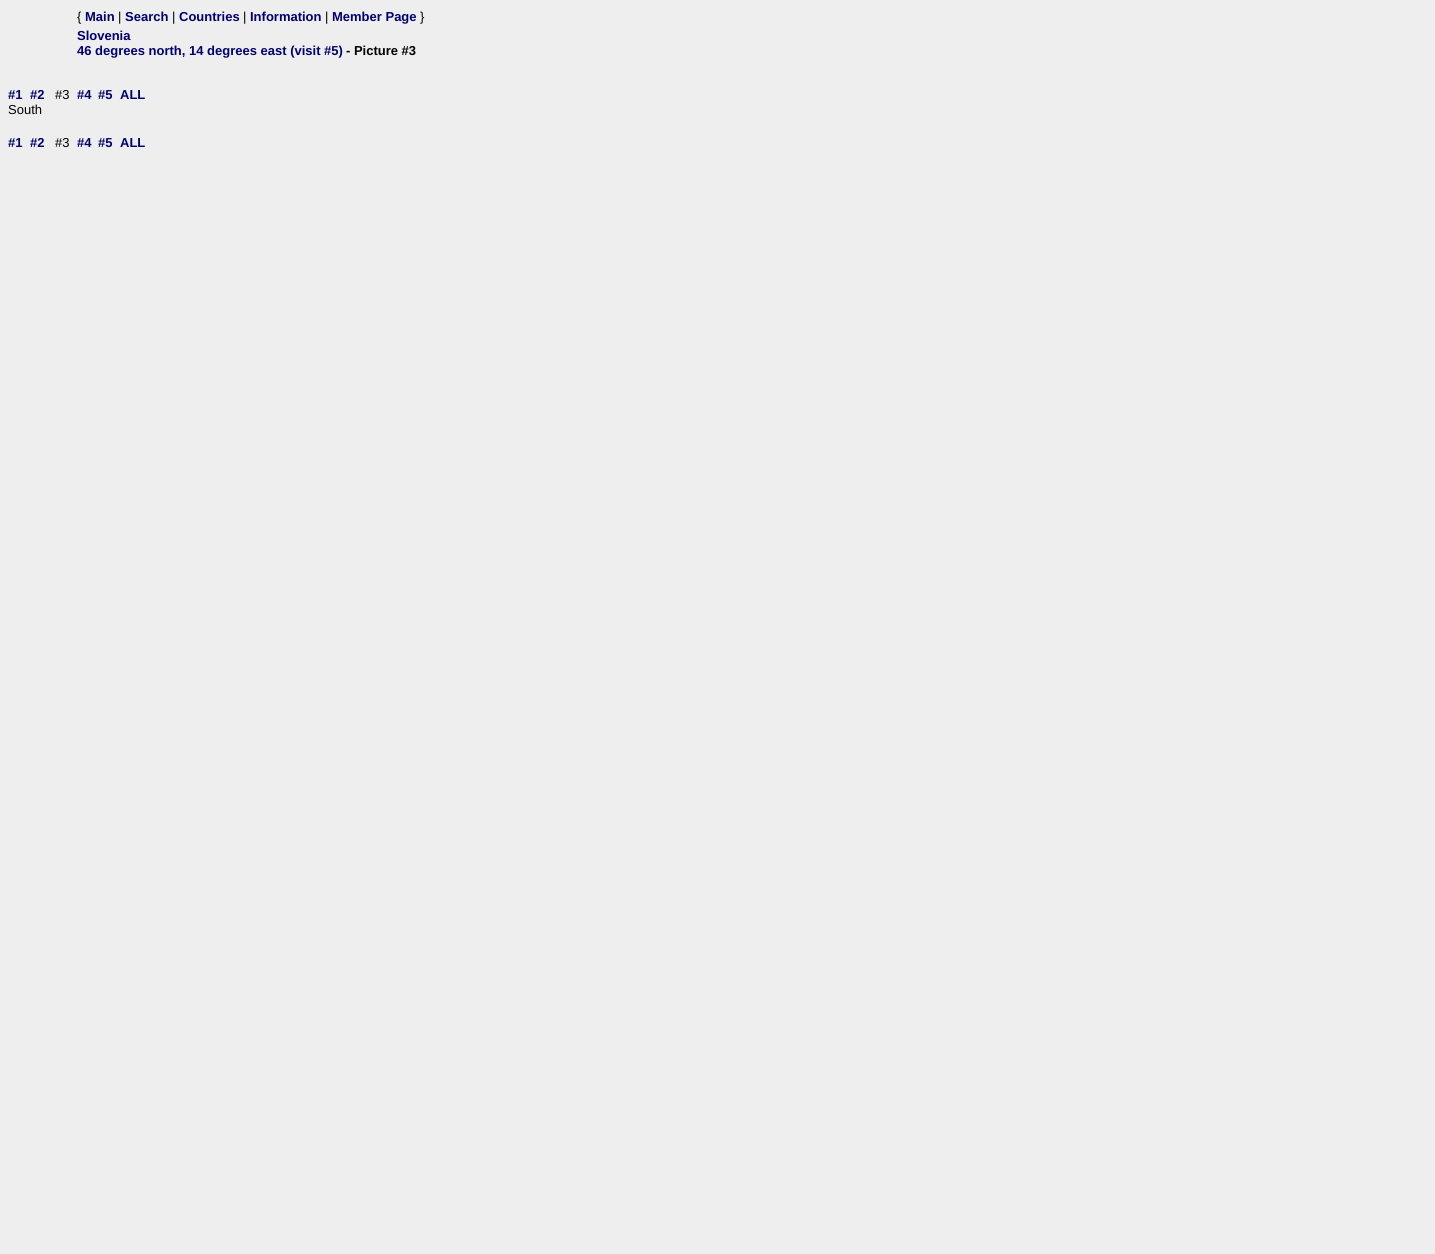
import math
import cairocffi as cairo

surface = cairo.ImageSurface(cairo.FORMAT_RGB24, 1435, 1254)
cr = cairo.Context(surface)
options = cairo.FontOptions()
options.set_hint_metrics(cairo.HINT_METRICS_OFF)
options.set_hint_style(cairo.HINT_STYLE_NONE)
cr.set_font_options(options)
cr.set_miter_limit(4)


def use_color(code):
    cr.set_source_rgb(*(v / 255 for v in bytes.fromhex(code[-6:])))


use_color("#eeeeee")
cr.paint()
cr.select_font_face("Liberation Sans")
cr.set_font_size(13)
use_color("#000000")
cr.move_to(77, 21)
cr.show_text("{")
cr.select_font_face("Liberation Sans", cairo.FONT_SLANT_NORMAL, cairo.FONT_WEIGHT_BOLD)
use_color("#000070")
cr.move_to(85, 21)
cr.show_text("Main")
cr.select_font_face("Liberation Sans")
use_color("#000000")
cr.move_to(118, 21)
cr.show_text("|")
cr.select_font_face("Liberation Sans", cairo.FONT_SLANT_NORMAL, cairo.FONT_WEIGHT_BOLD)
use_color("#000070")
cr.move_to(125, 21)
cr.show_text("Search")
cr.select_font_face("Liberation Sans")
use_color("#000000")
cr.move_to(172, 21)
cr.show_text("|")
cr.select_font_face("Liberation Sans", cairo.FONT_SLANT_NORMAL, cairo.FONT_WEIGHT_BOLD)
use_color("#000070")
cr.move_to(179, 21)
cr.show_text("Countries")
cr.select_font_face("Liberation Sans")
use_color("#000000")
cr.move_to(243, 21)
cr.show_text("|")
cr.select_font_face("Liberation Sans", cairo.FONT_SLANT_NORMAL, cairo.FONT_WEIGHT_BOLD)
use_color("#000070")
cr.move_to(250, 21)
cr.show_text("Information")
cr.select_font_face("Liberation Sans")
use_color("#000000")
cr.move_to(325, 21)
cr.show_text("|")
cr.select_font_face("Liberation Sans", cairo.FONT_SLANT_NORMAL, cairo.FONT_WEIGHT_BOLD)
use_color("#000070")
cr.move_to(332, 21)
cr.show_text("Member Page")
cr.select_font_face("Liberation Sans")
use_color("#000000")
cr.move_to(420, 21)
cr.show_text("}")
cr.select_font_face("Liberation Sans", cairo.FONT_SLANT_NORMAL, cairo.FONT_WEIGHT_BOLD)
use_color("#000070")
cr.move_to(77, 40)
cr.show_text("Slovenia")
cr.move_to(77, 55)
cr.show_text("46 degrees north, 14 degrees east (visit #5)")
use_color("#000000")
cr.move_to(346, 55)
cr.show_text("- Picture #3")
use_color("#000070")
cr.move_to(8, 99)
cr.show_text("#1")
cr.move_to(30, 99)
cr.show_text("#2")
cr.select_font_face("Liberation Sans")
use_color("#000000")
cr.move_to(55, 99)
cr.show_text("#3")
cr.select_font_face("Liberation Sans", cairo.FONT_SLANT_NORMAL, cairo.FONT_WEIGHT_BOLD)
use_color("#000070")
cr.move_to(77, 99)
cr.show_text("#4")
cr.move_to(98, 99)
cr.show_text("#5")
cr.move_to(120, 99)
cr.show_text("ALL")
cr.select_font_face("Liberation Sans")
use_color("#000000")
cr.move_to(8, 114)
cr.show_text("South")
cr.select_font_face("Liberation Sans", cairo.FONT_SLANT_NORMAL, cairo.FONT_WEIGHT_BOLD)
use_color("#000070")
cr.move_to(8, 147)
cr.show_text("#1")
cr.move_to(30, 147)
cr.show_text("#2")
cr.select_font_face("Liberation Sans")
use_color("#000000")
cr.move_to(55, 147)
cr.show_text("#3")
cr.select_font_face("Liberation Sans", cairo.FONT_SLANT_NORMAL, cairo.FONT_WEIGHT_BOLD)
use_color("#000070")
cr.move_to(77, 147)
cr.show_text("#4")
cr.move_to(98, 147)
cr.show_text("#5")
cr.move_to(120, 147)
cr.show_text("ALL")
surface.write_to_png("result.png")
